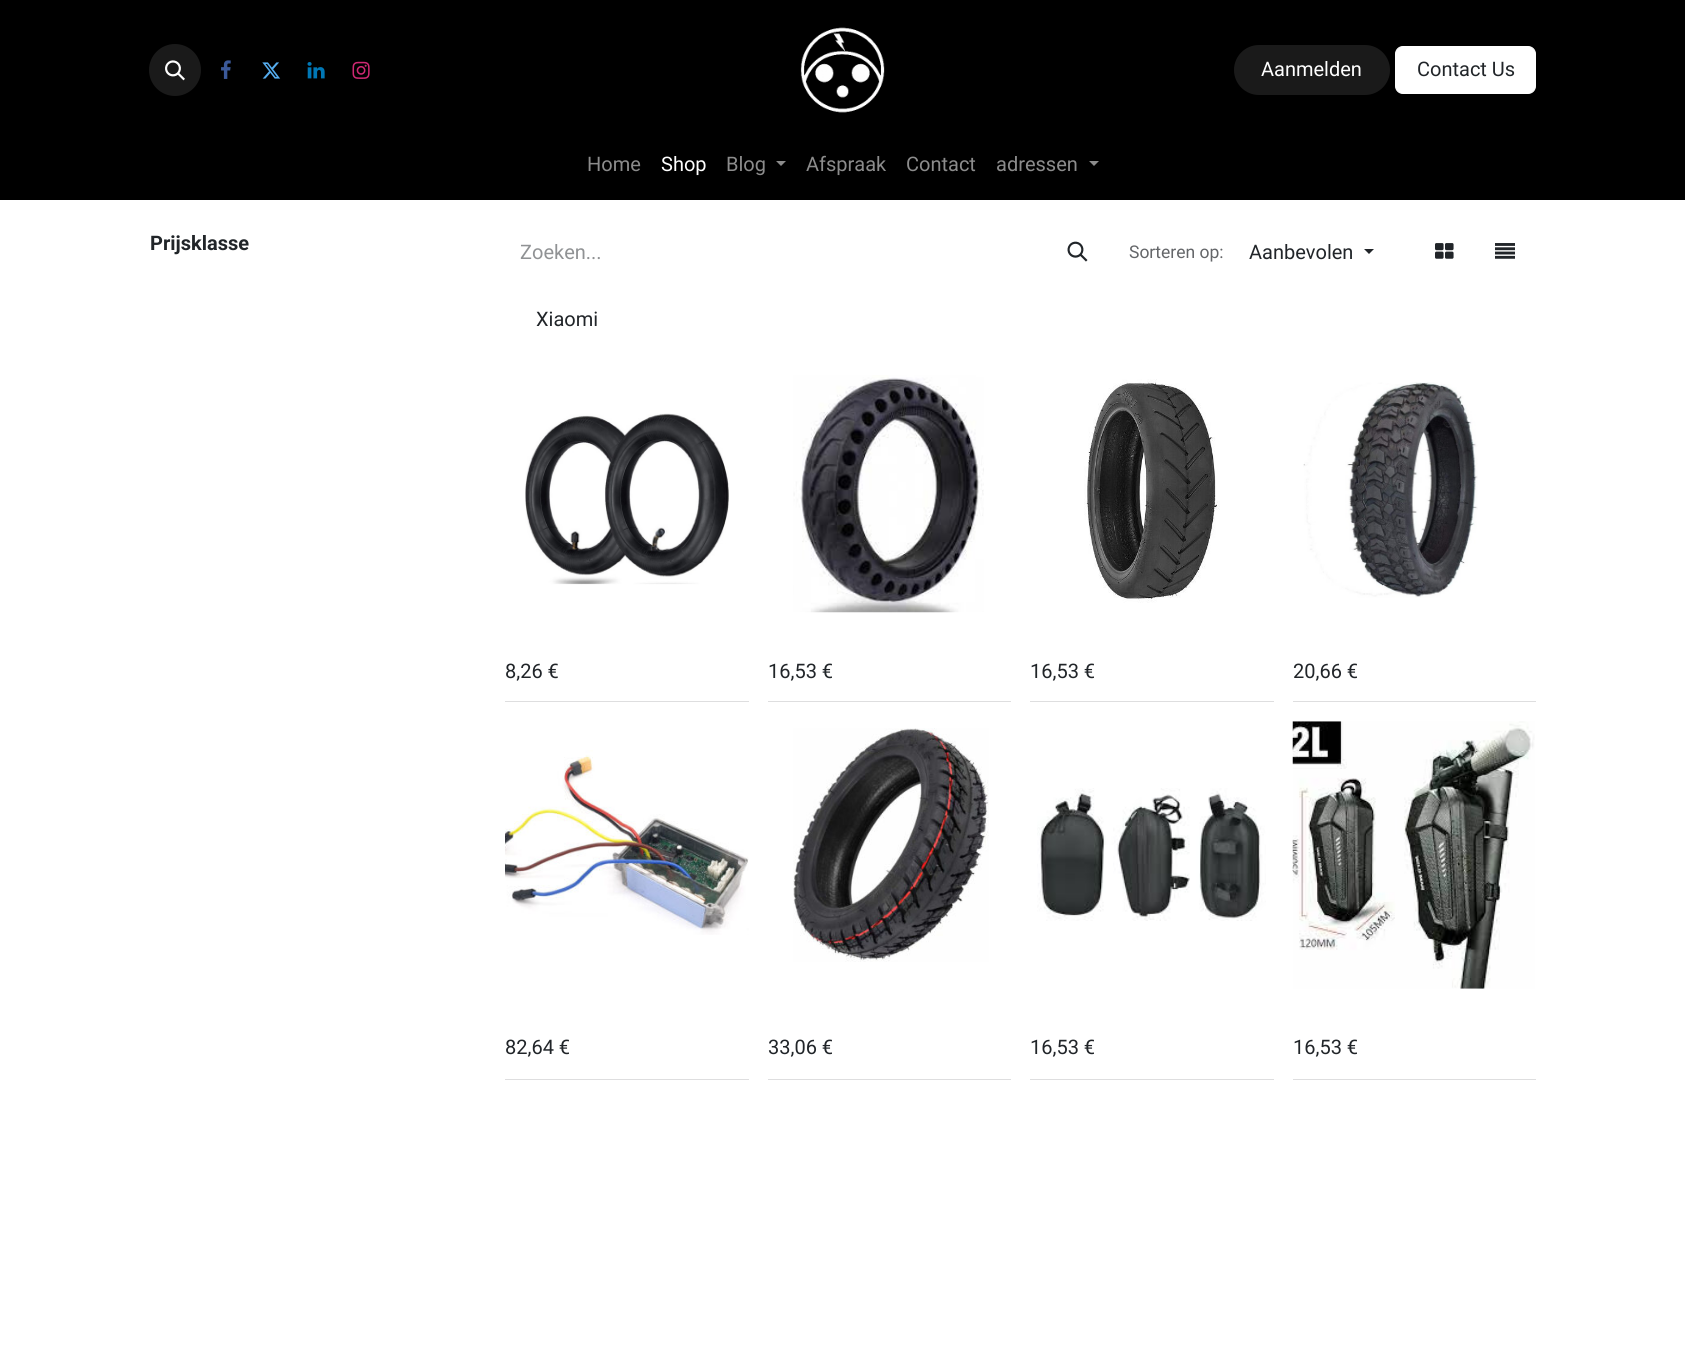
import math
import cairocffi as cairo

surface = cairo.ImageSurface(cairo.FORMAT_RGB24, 1685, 1368)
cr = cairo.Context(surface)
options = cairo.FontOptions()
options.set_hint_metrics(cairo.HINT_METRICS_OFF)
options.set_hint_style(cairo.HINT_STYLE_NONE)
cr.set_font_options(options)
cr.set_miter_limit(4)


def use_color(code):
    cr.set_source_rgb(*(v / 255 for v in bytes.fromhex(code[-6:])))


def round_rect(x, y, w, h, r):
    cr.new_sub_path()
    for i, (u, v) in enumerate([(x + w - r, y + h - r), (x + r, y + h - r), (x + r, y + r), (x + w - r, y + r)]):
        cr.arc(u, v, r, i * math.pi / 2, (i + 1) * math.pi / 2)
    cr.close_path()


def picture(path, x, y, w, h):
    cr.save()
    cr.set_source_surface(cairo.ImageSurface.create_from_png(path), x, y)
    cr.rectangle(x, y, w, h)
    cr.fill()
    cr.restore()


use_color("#ffffff")
cr.paint()
use_color("#000000")
cr.rectangle(0, 0, 1685, 200)
cr.fill()
use_color("#1a1a1a")
cr.arc(175, 70, 26, 0, 2 * math.pi)
cr.fill()
picture("img1.png", 165, 60, 20, 21)
picture("img2.png", 221, 60, 10, 19)
picture("img3.png", 262, 62, 19, 17)
picture("img4.png", 307, 62, 18, 17)
picture("img5.png", 352, 61, 18, 18)
picture("img6.png", 800, 27, 85, 86)
round_rect(1234, 45, 156, 50, 25)
cr.fill()
cr.select_font_face("Roboto")
cr.set_font_size(20)
use_color("#ffffff")
cr.move_to(1261, 76)
cr.show_text("Aanmelden")
round_rect(1395.5, 46.5, 140, 47, 7.5)
cr.fill_preserve()
cr.set_line_width(1)
cr.stroke()
use_color("#212529")
cr.move_to(1417, 76)
cr.show_text("Contact Us")
use_color("#8c8c8c")
cr.move_to(587, 171)
cr.show_text("Home")
use_color("#ffffff")
cr.move_to(661, 171)
cr.show_text("Shop")
use_color("#8c8c8c")
cr.move_to(726, 171)
cr.show_text("Blog")
cr.new_path()
cr.move_to(776, 161)
cr.line_to(786, 161)
cr.line_to(781, 166)
cr.close_path()
cr.fill()
cr.move_to(806, 171)
cr.show_text("Afspraak")
cr.move_to(906, 171)
cr.show_text("Contact")
cr.move_to(996, 171)
cr.show_text("adressen")
cr.new_path()
cr.move_to(1089, 161)
cr.line_to(1099, 161)
cr.line_to(1094, 166)
cr.close_path()
cr.fill()
cr.select_font_face("Roboto", cairo.FONT_SLANT_NORMAL, cairo.FONT_WEIGHT_BOLD)
use_color("#212529")
cr.move_to(150, 250)
cr.show_text("Prijsklasse")
cr.select_font_face("Roboto")
use_color("#909294")
cr.move_to(520, 259)
cr.show_text("Zoeken...")
picture("img7.png", 1067, 241, 21, 21)
cr.set_font_size(17.5)
use_color("#646669")
cr.move_to(1129, 258)
cr.show_text("Sorteren op:")
cr.set_font_size(20)
use_color("#212529")
cr.move_to(1249, 259)
cr.show_text("Aanbevolen")
cr.new_path()
cr.move_to(1364, 249)
cr.line_to(1374, 249)
cr.line_to(1369, 254)
cr.close_path()
cr.fill()
picture("img8.png", 1435, 243, 19, 16)
picture("img9.png", 1495, 243, 20, 16)
cr.move_to(536, 326)
cr.show_text("Xiaomi")
use_color("#dededf")
cr.rectangle(505, 701, 244, 1)
cr.fill()
picture("img10.png", 525, 413, 204, 172)
use_color("#212529")
cr.move_to(505, 678)
cr.show_text("8,26 €")
use_color("#dededf")
cr.rectangle(768, 701, 243, 1)
cr.fill()
picture("img11.png", 793, 375, 191, 238)
use_color("#212529")
cr.move_to(768, 678)
cr.show_text("16,53 €")
use_color("#dededf")
cr.rectangle(1030, 701, 244, 1)
cr.fill()
picture("img12.png", 1084, 379, 136, 224)
use_color("#212529")
cr.move_to(1030, 678)
cr.show_text("16,53 €")
use_color("#dededf")
cr.rectangle(1293, 701, 243, 1)
cr.fill()
picture("img13.png", 1303, 382, 175, 216)
use_color("#212529")
cr.move_to(1293, 678)
cr.show_text("20,66 €")
use_color("#dededf")
cr.rectangle(505, 1079, 244, 1)
cr.fill()
picture("img14.png", 505, 750, 244, 185)
use_color("#212529")
cr.move_to(505, 1054)
cr.show_text("82,64 €")
use_color("#dededf")
cr.rectangle(768, 1079, 243, 1)
cr.fill()
picture("img15.png", 793, 728, 196, 234)
use_color("#212529")
cr.move_to(768, 1054)
cr.show_text("33,06 €")
use_color("#dededf")
cr.rectangle(1030, 1079, 244, 1)
cr.fill()
picture("img16.png", 1037, 788, 229, 133)
use_color("#212529")
cr.move_to(1030, 1054)
cr.show_text("16,53 €")
use_color("#dededf")
cr.rectangle(1293, 1079, 243, 1)
cr.fill()
picture("img17.png", 1292, 721, 243, 268)
use_color("#212529")
cr.move_to(1293, 1054)
cr.show_text("16,53 €")
surface.write_to_png("result.png")
